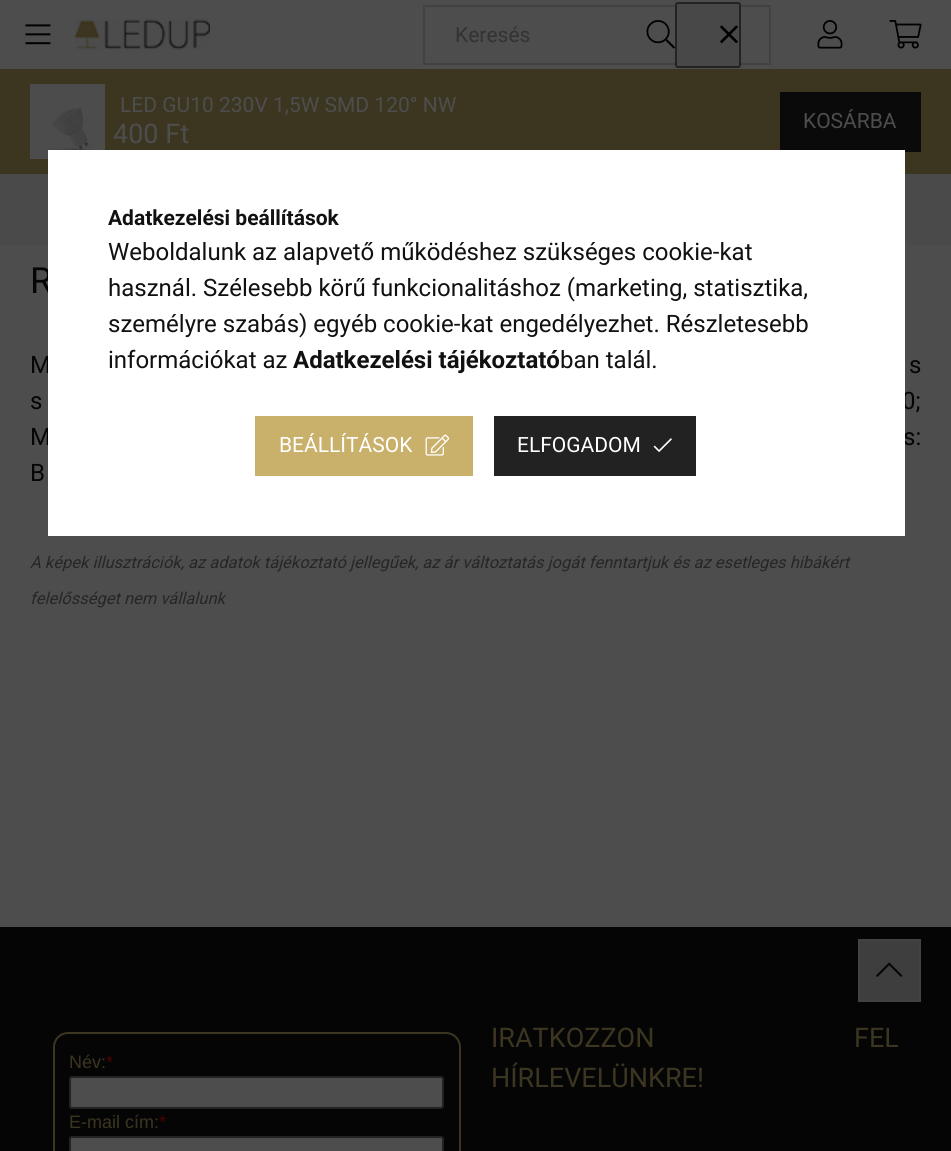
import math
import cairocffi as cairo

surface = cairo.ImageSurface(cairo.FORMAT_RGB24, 951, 1151)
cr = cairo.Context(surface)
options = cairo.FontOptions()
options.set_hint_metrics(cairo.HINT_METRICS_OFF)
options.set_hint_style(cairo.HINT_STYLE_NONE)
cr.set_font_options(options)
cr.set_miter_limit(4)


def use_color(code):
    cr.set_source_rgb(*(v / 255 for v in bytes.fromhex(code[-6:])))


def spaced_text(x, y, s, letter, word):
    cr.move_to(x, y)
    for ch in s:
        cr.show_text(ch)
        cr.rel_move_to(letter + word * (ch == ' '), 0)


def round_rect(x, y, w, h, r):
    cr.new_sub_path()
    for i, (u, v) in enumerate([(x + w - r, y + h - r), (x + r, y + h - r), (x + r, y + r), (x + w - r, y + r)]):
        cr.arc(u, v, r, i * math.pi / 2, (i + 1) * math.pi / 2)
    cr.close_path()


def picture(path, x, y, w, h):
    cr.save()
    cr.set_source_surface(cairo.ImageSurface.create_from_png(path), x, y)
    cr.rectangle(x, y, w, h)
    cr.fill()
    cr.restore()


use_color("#4d4d4d")
cr.paint()
picture("img1.png", 25, 24, 26, 21)
picture("img2.png", 75, 19, 135, 31)
cr.rectangle(424, 6, 346, 58)
use_color("#424242")
cr.stroke()
cr.select_font_face("Roboto")
cr.set_font_size(21)
use_color("#333333")
cr.move_to(455, 42)
cr.show_text("Keresés")
picture("img3.png", 646, 20, 29, 29)
use_color("#484848")
round_rect(676, 3, 64, 64, 2)
cr.fill_preserve()
use_color("#232323")
cr.stroke()
picture("img4.png", 720, 25, 18, 19)
picture("img5.png", 817, 20, 26, 29)
picture("img6.png", 889, 20, 33, 29)
use_color("#3c3520")
cr.rectangle(0, 69, 951, 105)
cr.fill()
picture("img7.png", 30, 84, 75, 75)
use_color("#4d4d4d")
cr.move_to(120, 112)
cr.show_text("LED GU10 230V 1,5W SMD 120° NW")
cr.set_font_size(27)
cr.move_to(113, 143)
cr.show_text("400 Ft")
use_color("#0a0a0a")
cr.rectangle(780, 92, 141, 60)
cr.fill()
cr.set_font_size(21)
use_color("#4d4d4d")
cr.move_to(803, 128)
cr.show_text("KOSÁRBA")
use_color("#4a4a4a")
cr.rectangle(0, 174, 951, 71)
cr.fill()
cr.set_font_size(36)
use_color("#050505")
cr.move_to(30, 293)
cr.show_text("R")
cr.set_font_size(24)
spaced_text(30, 373, "M", 0, 22)
spaced_text(909, 373, "s", 0, 22)
spaced_text(30, 409, "s", 0, 10)
spaced_text(902, 409, "0;", 0, 10)
spaced_text(30, 445, "M", 0, 5)
spaced_text(903, 445, "s:", 0, 5)
cr.move_to(30, 481)
cr.show_text("B")
cr.select_font_face("Roboto", cairo.FONT_SLANT_ITALIC)
cr.set_font_size(16.5)
use_color("#262626")
cr.move_to(30, 568)
cr.show_text("A képek illusztrációk, az adatok tájékoztató jellegűek, az ár változtatás jogát fenntartjuk és az esetleges hibákért")
cr.move_to(30, 604)
cr.show_text("felelősséget nem vállalunk")
use_color("#050505")
cr.rectangle(0, 927, 951, 224)
cr.fill()
round_rect(54, 1033, 406, 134, 14)
use_color("#3c3520")
cr.stroke()
cr.select_font_face("Liberation Sans")
cr.set_font_size(18)
cr.move_to(69, 1068)
cr.show_text("Név:")
use_color("#4d0000")
cr.move_to(106, 1068)
cr.show_text("*")
use_color("#4d4d4d")
round_rect(70, 1077, 373, 31, 2)
cr.fill_preserve()
use_color("#232323")
cr.stroke()
use_color("#3c3520")
cr.move_to(69, 1128)
cr.show_text("E-mail cím:")
use_color("#4d0000")
cr.move_to(159, 1128)
cr.show_text("*")
use_color("#4d4d4d")
round_rect(70, 1137, 373, 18, 2)
cr.fill_preserve()
use_color("#232323")
cr.stroke()
cr.select_font_face("Roboto")
cr.set_font_size(27)
use_color("#3c3520")
spaced_text(491, 1047, "IRATKOZZON FEL", 0, 193)
cr.move_to(491, 1087)
cr.show_text("HÍRLEVELÜNKRE!")
use_color("#ffffff")
cr.rectangle(48, 150, 857, 386)
cr.fill()
cr.select_font_face("Roboto", cairo.FONT_SLANT_NORMAL, cairo.FONT_WEIGHT_BOLD)
cr.set_font_size(21)
use_color("#111111")
cr.move_to(108, 225)
cr.show_text("Adatkezelési beállítások")
cr.select_font_face("Roboto")
cr.set_font_size(24)
cr.move_to(108, 260)
cr.show_text("Weboldalunk az alapvető működéshez szükséges cookie-kat")
cr.move_to(108, 296)
cr.show_text("használ. Szélesebb körű funkcionalitáshoz (marketing, statisztika,")
cr.move_to(108, 332)
cr.show_text("személyre szabás) egyéb cookie-kat engedélyezhet. Részletesebb")
cr.move_to(108, 368)
cr.show_text("információkat az")
cr.select_font_face("Roboto", cairo.FONT_SLANT_NORMAL, cairo.FONT_WEIGHT_BOLD)
cr.move_to(293, 368)
cr.show_text("Adatkezelési tájékoztató")
cr.select_font_face("Roboto")
cr.move_to(560, 368)
cr.show_text("ban talál.")
use_color("#c9b06b")
cr.rectangle(255, 416, 218, 60)
cr.fill()
cr.set_font_size(21)
use_color("#ffffff")
cr.move_to(279, 452)
cr.show_text("BEÁLLÍTÁSOK")
picture("img8.png", 425, 434, 25, 22)
use_color("#222222")
cr.rectangle(494, 416, 202, 60)
cr.fill()
use_color("#ffffff")
cr.move_to(517, 452)
cr.show_text("ELFOGADOM")
picture("img9.png", 653, 438, 19, 14)
use_color("#3e3e3e")
cr.rectangle(859, 940, 61, 61)
cr.fill_preserve()
use_color("#424242")
cr.stroke()
picture("img10.png", 876, 962, 27, 15)
surface.write_to_png("result.png")
